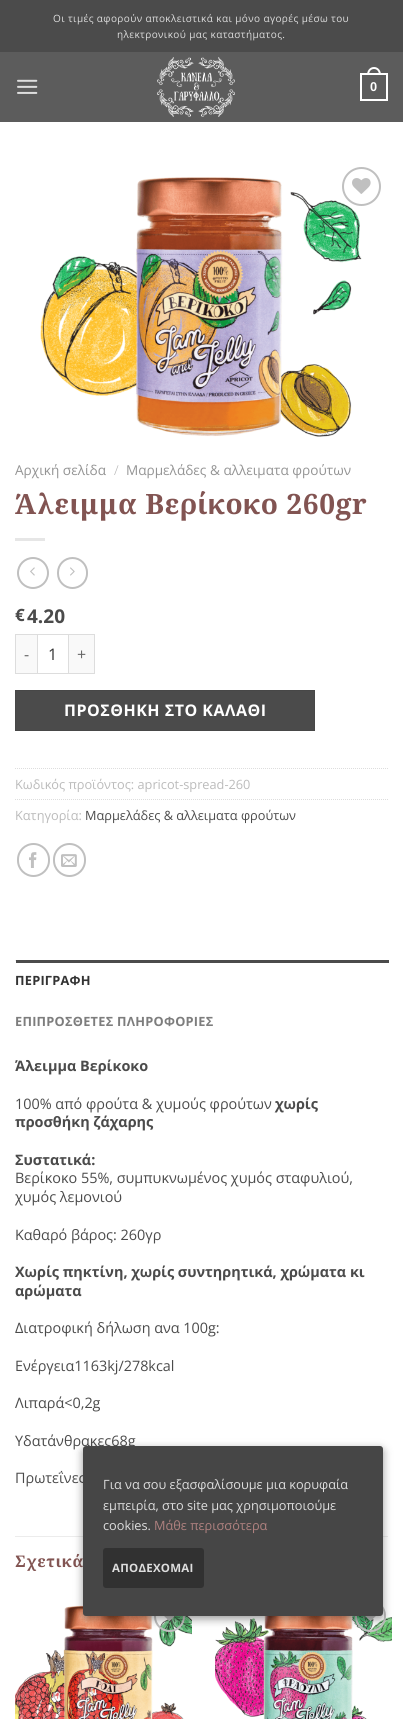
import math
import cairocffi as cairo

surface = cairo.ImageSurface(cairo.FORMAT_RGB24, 403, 1719)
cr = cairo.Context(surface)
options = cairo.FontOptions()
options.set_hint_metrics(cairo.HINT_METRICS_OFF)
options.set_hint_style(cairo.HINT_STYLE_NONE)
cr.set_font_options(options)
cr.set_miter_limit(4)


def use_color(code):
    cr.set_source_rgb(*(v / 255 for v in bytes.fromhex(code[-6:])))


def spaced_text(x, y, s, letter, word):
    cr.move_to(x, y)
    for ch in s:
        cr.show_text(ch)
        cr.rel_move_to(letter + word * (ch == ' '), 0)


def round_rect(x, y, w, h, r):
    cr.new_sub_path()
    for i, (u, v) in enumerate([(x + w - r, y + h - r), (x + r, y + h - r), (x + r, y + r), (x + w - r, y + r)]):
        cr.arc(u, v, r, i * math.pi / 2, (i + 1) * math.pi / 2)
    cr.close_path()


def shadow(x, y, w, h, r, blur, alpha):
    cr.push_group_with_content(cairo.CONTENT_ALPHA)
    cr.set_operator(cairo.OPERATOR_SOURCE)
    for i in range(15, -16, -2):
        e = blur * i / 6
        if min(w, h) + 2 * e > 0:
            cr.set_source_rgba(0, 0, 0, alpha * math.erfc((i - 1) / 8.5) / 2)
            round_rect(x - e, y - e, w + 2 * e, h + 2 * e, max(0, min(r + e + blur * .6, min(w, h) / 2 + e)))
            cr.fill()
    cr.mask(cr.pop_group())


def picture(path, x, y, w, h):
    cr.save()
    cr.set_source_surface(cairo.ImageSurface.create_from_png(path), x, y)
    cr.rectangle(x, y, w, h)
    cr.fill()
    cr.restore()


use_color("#ffffff")
cr.paint()
use_color("#4b4b4b")
cr.rectangle(0, 0, 403, 52)
cr.fill()
cr.select_font_face("Open Sans")
cr.set_font_size(10)
use_color("#dddddd")
spaced_text(53, 22, "Οι τιμές αφορούν αποκλειστικά και μόνο αγορές μέσω του", 0.4, 0)
spaced_text(117, 38, "ηλεκτρονικού μας καταστήματος.", 0.4, 0)
use_color("#5c5c5c")
cr.rectangle(0, 52, 403, 70)
cr.fill()
picture("img1.png", 17, 79, 21, 15)
picture("img2.png", 157, 57, 78, 60)
cr.rectangle(361, 74, 26, 26)
use_color("#ffffff")
cr.stroke()
cr.set_fill_rule(cairo.FILL_RULE_EVEN_ODD)
cr.new_path()
cr.move_to(374, 67)
cr.curve_to(378.5, 67, 381, 71, 381, 75)
cr.line_to(367, 75)
cr.curve_to(367, 71, 369.5, 67, 374, 67)
cr.close_path()
cr.move_to(374, 69)
cr.curve_to(377.5, 69, 379, 72, 379, 75)
cr.line_to(369, 75)
cr.curve_to(369, 72, 370.5, 69, 374, 69)
cr.close_path()
cr.fill()
cr.select_font_face("Liberation Sans", cairo.FONT_SLANT_NORMAL, cairo.FONT_WEIGHT_BOLD)
cr.set_font_size(12.75)
cr.move_to(370, 91)
cr.show_text("0")
picture("img4.png", 40, 177, 322, 260)
cr.arc(361.5, 186.5, 18.5, 0, 2 * math.pi)
use_color("#c0c0c0")
cr.stroke()
picture("img3.png", 352, 178, 19, 16)
cr.select_font_face("Open Sans")
cr.set_font_size(13.6)
use_color("#949494")
cr.move_to(15, 475)
cr.show_text("Αρχική σελίδα")
cr.select_font_face("Open Sans Light")
use_color("#b2b2b2")
cr.move_to(114, 475)
cr.show_text("/")
cr.select_font_face("Open Sans")
use_color("#949494")
cr.move_to(126, 475)
cr.show_text("Μαρμελάδες & αλλειματα φρούτων")
cr.select_font_face("Noto Serif", cairo.FONT_SLANT_NORMAL, cairo.FONT_WEIGHT_BOLD)
cr.set_font_size(28)
use_color("#825452")
spaced_text(15, 514, "Άλειμμα Βερίκοκο 260gr", 0.6, 0)
use_color("#e6e6e6")
cr.rectangle(15, 538, 30, 3)
cr.fill()
cr.arc(33, 573, 15, 0, 2 * math.pi)
use_color("#c0c0c0")
cr.stroke()
picture("img5.png", 30, 567, 5, 9)
round_rect(58, 558, 29, 30, 14.5)
cr.stroke()
picture("img6.png", 70, 567, 5, 9)
cr.select_font_face("Open Sans", cairo.FONT_SLANT_NORMAL, cairo.FONT_WEIGHT_BOLD)
cr.set_font_size(17)
use_color("#4b4b4b")
cr.move_to(15, 621)
cr.show_text("€")
cr.set_font_size(19)
cr.move_to(27, 623)
cr.show_text("4.20")
use_color("#f9f9f9")
cr.rectangle(16, 635, 21, 38)
cr.fill()
use_color("#dddddd")
cr.rectangle(15, 634, 22, 1)
cr.fill()
cr.rectangle(15, 673, 22, 1)
cr.fill()
cr.rectangle(15, 634, 1, 40)
cr.fill()
cr.select_font_face("Open Sans")
cr.set_font_size(16)
use_color("#666666")
cr.move_to(24, 660)
cr.show_text("-")
cr.rectangle(37.5, 634.5, 31, 39)
use_color("#dddddd")
cr.set_line_width(1)
cr.stroke()
use_color("#333333")
cr.move_to(48, 660)
cr.show_text("1")
use_color("#f9f9f9")
cr.rectangle(69, 635, 25, 38)
cr.fill()
use_color("#dddddd")
cr.rectangle(69, 634, 26, 1)
cr.fill()
cr.rectangle(94, 634, 1, 40)
cr.fill()
cr.rectangle(69, 673, 26, 1)
cr.fill()
use_color("#666666")
cr.move_to(77, 660)
cr.show_text("+")
use_color("#4b4b4b")
cr.rectangle(15.5, 690.5, 299, 40)
cr.fill_preserve()
use_color("#474747")
cr.stroke()
cr.select_font_face("Open Sans", cairo.FONT_SLANT_NORMAL, cairo.FONT_WEIGHT_BOLD)
use_color("#ffffff")
spaced_text(64, 716, "ΠΡΟΣΘΗΚΗ ΣΤΟ ΚΑΛΑΘΙ", 0.5, 0)
cr.new_path()
cr.move_to(15, 768.5)
cr.line_to(388, 768.5)
use_color("#dddddd")
cr.set_dash([1, 1])
cr.stroke()
cr.select_font_face("Open Sans")
cr.set_font_size(12.75)
use_color("#bbbbbb")
cr.move_to(15, 789)
cr.show_text("Κωδικός προϊόντος: apricot-spread-260")
cr.new_path()
cr.move_to(15, 799.5)
cr.line_to(388, 799.5)
use_color("#dddddd")
cr.stroke()
use_color("#bbbbbb")
cr.move_to(15, 820)
cr.show_text("Κατηγορία:")
use_color("#4b4b4b")
cr.move_to(85, 820)
cr.show_text("Μαρμελάδες & αλλειματα φρούτων")
round_rect(18, 844, 31, 32, 15.5)
use_color("#c0c0c0")
cr.set_line_width(2)
cr.set_dash([])
cr.stroke()
picture("img7.png", 29, 852, 8, 16)
round_rect(54, 844, 31, 32, 15.5)
cr.stroke()
picture("img8.png", 61, 854, 16, 13)
use_color("#ececec")
cr.rectangle(15, 960, 1, 1)
cr.fill()
use_color("#4b4b4b")
cr.rectangle(16, 960, 373, 3)
cr.fill()
cr.select_font_face("Open Sans", cairo.FONT_SLANT_NORMAL, cairo.FONT_WEIGHT_BOLD)
use_color("#333333")
spaced_text(15, 985, "ΠΕΡΙΓΡΑΦΗ", 0.25, 0)
use_color("#7d7d7d")
spaced_text(15, 1026, "ΕΠΙΠΡΟΣΘΕΤΕΣ ΠΛΗΡΟΦΟΡΙΕΣ", 0.25, 0)
cr.set_font_size(14.4)
use_color("#4b4b4b")
cr.move_to(15, 1071)
cr.show_text("Άλειμμα Βερίκοκο")
cr.select_font_face("Open Sans")
cr.move_to(15, 1109)
cr.show_text("100% από φρούτα & χυμούς φρούτων")
cr.select_font_face("Open Sans", cairo.FONT_SLANT_NORMAL, cairo.FONT_WEIGHT_BOLD)
cr.move_to(275, 1109)
cr.show_text("χωρίς")
cr.move_to(15, 1127)
cr.show_text("προσθήκη ζάχαρης")
cr.move_to(15, 1165)
cr.show_text("Συστατικά:")
cr.select_font_face("Open Sans")
cr.move_to(15, 1183)
cr.show_text("Βερίκοκο 55%, συμπυκνωμένος χυμός σταφυλιού,")
cr.move_to(15, 1202)
cr.show_text("χυμός λεμονιού")
cr.move_to(15, 1240)
cr.show_text("Καθαρό βάρος: 260γρ")
cr.select_font_face("Open Sans", cairo.FONT_SLANT_NORMAL, cairo.FONT_WEIGHT_BOLD)
cr.move_to(15, 1277)
cr.show_text("Χωρίς πηκτίνη, χωρίς συντηρητικά, χρώματα κι")
cr.move_to(15, 1296)
cr.show_text("αρώματα")
cr.select_font_face("Open Sans")
cr.move_to(15, 1333)
cr.show_text("Διατροφική δήλωση ανα 100g:")
cr.move_to(15, 1371)
cr.show_text("Ενέργεια1163kj/278kcal")
cr.move_to(15, 1408)
cr.show_text("Λιπαρά<0,2g")
cr.move_to(15, 1446)
cr.show_text("Υδατάνθρακες68g")
cr.move_to(15, 1483)
cr.show_text("Πρωτεΐνες")
use_color("#ececec")
cr.rectangle(15, 1536, 373, 1)
cr.fill()
cr.select_font_face("Noto Serif", cairo.FONT_SLANT_NORMAL, cairo.FONT_WEIGHT_BOLD)
cr.set_font_size(16)
use_color("#825452")
spaced_text(15, 1567, "Σχετικά", 0.75, 0)
picture("img10.png", 15, 1605, 177, 114)
round_rect(155, 1601, 29, 30, 14.5)
use_color("#c0c0c0")
cr.stroke()
picture("img9.png", 164, 1616, 11, 5)
picture("img12.png", 215, 1616, 177, 103)
round_rect(356, 1601, 29, 30, 14.5)
cr.stroke()
picture("img11.png", 365, 1616, 11, 5)
use_color("#000000")
shadow(83, 1449, 300, 170, 3, 4.5, 0.4)
use_color("#464646")
round_rect(83, 1446, 300, 170, 3)
cr.fill()
cr.select_font_face("Open Sans")
cr.set_font_size(12.75)
use_color("#dddddd")
cr.move_to(103, 1489)
cr.show_text("Για να σου εξασφαλίσουμε μια κορυφαία")
cr.move_to(103, 1510)
cr.show_text("εμπειρία, στο site μας χρησιμοποιούμε")
cr.move_to(103, 1530)
cr.show_text("cookies.")
use_color("#af817f")
cr.move_to(154, 1530)
cr.show_text("Μάθε περισσότερα")
use_color("#313131")
round_rect(103, 1548, 101, 40, 3)
cr.fill()
cr.select_font_face("Open Sans", cairo.FONT_SLANT_NORMAL, cairo.FONT_WEIGHT_BOLD)
cr.set_font_size(11.5)
use_color("#dddddd")
spaced_text(112, 1572, "ΑΠΟΔΕΧΟΜΑΙ", 0.25, 0)
surface.write_to_png("result.png")
